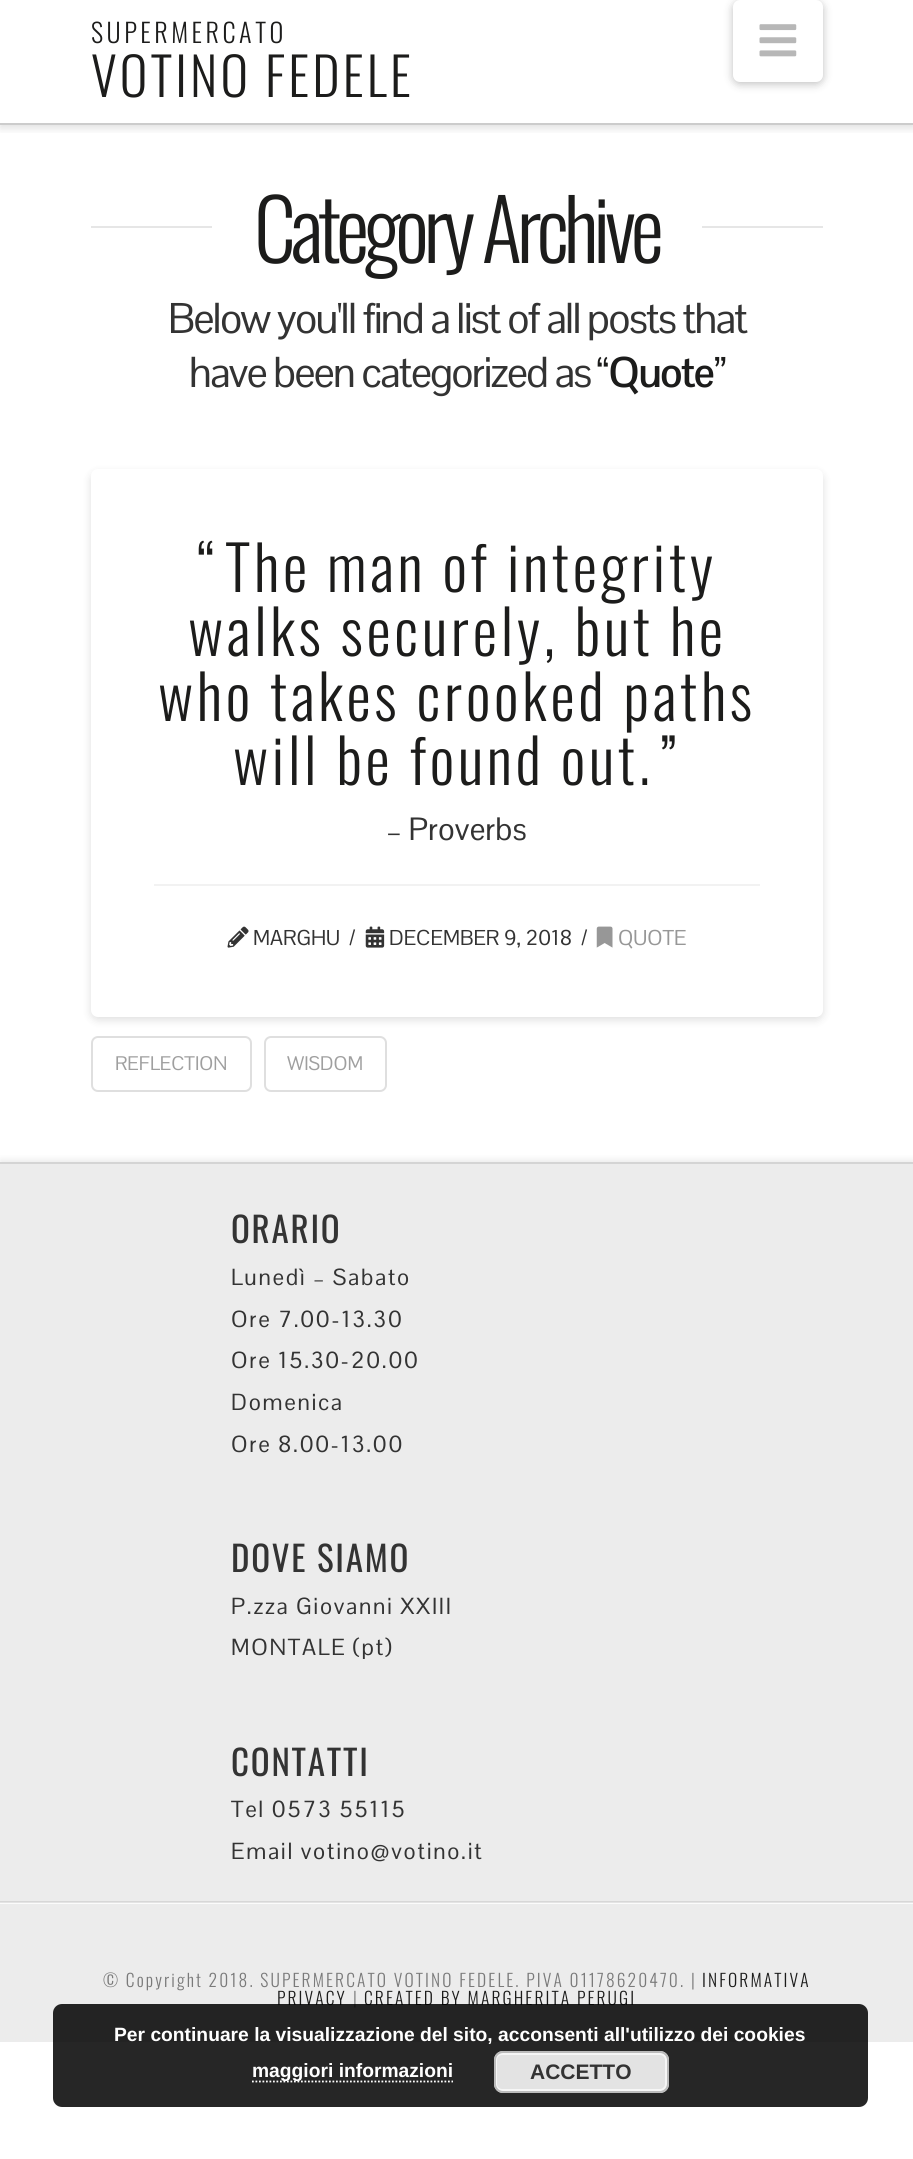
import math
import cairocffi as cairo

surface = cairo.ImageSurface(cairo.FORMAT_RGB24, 913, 2159)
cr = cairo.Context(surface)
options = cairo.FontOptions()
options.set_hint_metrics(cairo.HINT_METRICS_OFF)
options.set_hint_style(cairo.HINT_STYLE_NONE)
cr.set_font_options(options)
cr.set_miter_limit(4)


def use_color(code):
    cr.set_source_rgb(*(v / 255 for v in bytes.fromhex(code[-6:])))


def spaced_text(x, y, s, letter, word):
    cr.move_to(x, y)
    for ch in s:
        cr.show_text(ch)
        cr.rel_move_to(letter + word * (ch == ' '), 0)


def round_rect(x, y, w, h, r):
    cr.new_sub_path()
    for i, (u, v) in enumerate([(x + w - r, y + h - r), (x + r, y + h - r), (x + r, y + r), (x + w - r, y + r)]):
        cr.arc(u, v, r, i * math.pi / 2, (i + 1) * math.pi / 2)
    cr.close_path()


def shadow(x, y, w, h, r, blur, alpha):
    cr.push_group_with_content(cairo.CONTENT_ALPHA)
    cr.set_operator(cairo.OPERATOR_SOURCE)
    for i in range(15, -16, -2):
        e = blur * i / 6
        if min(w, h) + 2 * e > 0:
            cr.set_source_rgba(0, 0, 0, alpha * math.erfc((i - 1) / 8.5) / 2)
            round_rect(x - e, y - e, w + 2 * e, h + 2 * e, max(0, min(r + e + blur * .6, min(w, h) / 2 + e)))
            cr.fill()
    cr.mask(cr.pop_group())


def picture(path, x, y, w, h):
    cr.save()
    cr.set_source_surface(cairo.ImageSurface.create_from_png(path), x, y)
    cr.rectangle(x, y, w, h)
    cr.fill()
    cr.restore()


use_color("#ffffff")
cr.paint()
cr.save()
cr.rectangle(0, 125, 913, 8)
cr.clip()
use_color("#000000")
shadow(0, 4, 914, 124, 0, 4.5, 0.13)
cr.restore()
use_color("#cccccc")
cr.rectangle(0, 123, 913, 2)
cr.fill()
cr.select_font_face("Oswald Light")
cr.set_font_size(26.25)
use_color("#1c1c1b")
spaced_text(91, 43, "SUPERMERCATO", 3.5, 0)
cr.set_font_size(52.5)
spaced_text(91, 97, "VOTINO FEDELE", 3.1, 0)
use_color("#000000")
shadow(733, 2, 90, 82, 7, 4.5, 0.25)
use_color("#ffffff")
round_rect(733, 0, 90, 82, 7)
cr.fill()
picture("img1.png", 759, 24, 38, 33)
use_color("#e6e6e6")
cr.rectangle(91, 226, 121, 2)
cr.fill()
cr.set_font_size(84)
use_color("#1c1c1b")
spaced_text(254, 263, "Category Archive", -5.25, 0)
use_color("#e6e6e6")
cr.rectangle(702, 226, 121, 2)
cr.fill()
cr.select_font_face("Pontano Sans")
cr.set_font_size(42)
use_color("#333333")
spaced_text(168, 333, "Below you'll find a list of all posts that", -1.75, 0)
spaced_text(189, 387, "have been categorized as", -1.75, 0)
cr.select_font_face("Pontano Sans", cairo.FONT_SLANT_NORMAL, cairo.FONT_WEIGHT_BOLD)
use_color("#1c1c1b")
spaced_text(597, 387, "“Quote”", -1.75, 0)
use_color("#000000")
shadow(91, 473, 732, 547, 7, 4.5, 0.13)
use_color("#ffffff")
round_rect(91, 469, 732, 548, 7)
cr.fill()
use_color("#f2f2f2")
cr.rectangle(154, 884, 606, 2)
cr.fill()
cr.select_font_face("Oswald Light")
cr.set_font_size(61.25)
use_color("#1c1c1b")
spaced_text(197, 592, "“", 3.7, 0)
spaced_text(225, 592, "The man of integrity", 3.7, 0)
spaced_text(188, 656, "walks securely, but he", 3.7, 0)
spaced_text(158, 721, "who takes crooked paths", 3.7, 0)
spaced_text(233, 785, "will be found out.", 3.7, 0)
spaced_text(660, 785, "”", 3.7, 0)
cr.select_font_face("Pontano Sans")
cr.set_font_size(31.5)
use_color("#333333")
cr.move_to(386, 840)
cr.show_text("– Proverbs")
picture("img2.png", 227, 926, 22, 22)
cr.set_font_size(21)
cr.move_to(253, 945)
cr.show_text("MARGHU")
cr.move_to(349, 945)
cr.show_text("/")
picture("img3.png", 365, 926, 20, 22)
cr.move_to(389, 945)
cr.show_text("DECEMBER 9, 2018")
cr.move_to(581, 945)
cr.show_text("/")
picture("img4.png", 596, 926, 17, 22)
use_color("#979797")
cr.move_to(618, 945)
cr.show_text("QUOTE")
round_rect(92, 1037, 159, 54, 6)
use_color("#dfdfdf")
cr.stroke()
cr.set_font_size(19.25)
use_color("#9f9f9f")
cr.move_to(115, 1070)
cr.show_text("REFLECTION")
round_rect(265, 1037, 121, 54, 6)
use_color("#dfdfdf")
cr.stroke()
use_color("#9f9f9f")
cr.move_to(287, 1070)
cr.show_text("WISDOM")
use_color("#000000")
shadow(0, 1159, 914, 738, 0, 3, 0.07)
use_color("#ececec")
cr.rectangle(0, 1164, 913, 878)
cr.fill()
use_color("#d4d4d4")
cr.rectangle(0, 1162, 913, 2)
cr.fill()
cr.select_font_face("Oswald")
cr.set_font_size(35)
use_color("#333333")
spaced_text(231, 1243, "ORARIO", 1.75, 0)
cr.select_font_face("Pontano Sans")
cr.set_font_size(22.75)
spaced_text(231, 1285, "Lunedì – Sabato", 1.75, 0)
spaced_text(231, 1327, "Ore 7.00-13.30", 1.75, 0)
spaced_text(231, 1368, "Ore 15.30-20.00", 1.75, 0)
spaced_text(231, 1410, "Domenica", 1.75, 0)
spaced_text(231, 1452, "Ore 8.00-13.00", 1.75, 0)
cr.select_font_face("Oswald")
cr.set_font_size(35)
spaced_text(231, 1572, "DOVE SIAMO", 1.75, 0)
cr.select_font_face("Pontano Sans")
cr.set_font_size(22.75)
spaced_text(231, 1614, "P.zza Giovanni XXIII", 1.75, 0)
spaced_text(231, 1655, "MONTALE (pt)", 1.75, 0)
cr.select_font_face("Oswald")
cr.set_font_size(35)
spaced_text(231, 1776, "CONTATTI", 1.75, 0)
cr.select_font_face("Pontano Sans")
cr.set_font_size(22.75)
spaced_text(231, 1817, "Tel 0573 55115", 1.75, 0)
spaced_text(231, 1859, "Email votino@votino.it", 1.75, 0)
use_color("#fbfbfb")
cr.rectangle(0, 1902, 913, 2)
cr.fill()
cr.set_source_rgba(0, 0, 0, 0.09)
cr.rectangle(0, 1901, 913, 2)
cr.fill()
cr.select_font_face("Oswald Light")
cr.set_font_size(17.5)
use_color("#7a7a7a")
spaced_text(103, 1987, "© Copyright 2018. SUPERMERCATO VOTINO FEDELE. PIVA 01178620470. |", 2.1, 0)
use_color("#1c1c1b")
spaced_text(702, 1987, "INFORMATIVA", 2.1, 0)
spaced_text(277, 2005, "PRIVACY", 2.1, 0)
use_color("#7a7a7a")
spaced_text(353, 2005, "|", 2.1, 0)
use_color("#1c1c1b")
spaced_text(364, 2005, "CREATED BY MARGHERITA PERUGI", 2.1, 0)
cr.set_source_rgba(0, 0, 0, 0.85)
round_rect(53, 2004, 815, 103, 9)
cr.fill()
cr.select_font_face("Liberation Sans", cairo.FONT_SLANT_NORMAL, cairo.FONT_WEIGHT_BOLD)
cr.set_font_size(19.25)
use_color("#ffffff")
cr.move_to(114, 2041)
cr.show_text("Per continuare la visualizzazione del sito, acconsenti all'utilizzo dei cookies")
cr.new_path()
cr.move_to(252, 2081.5)
cr.line_to(453, 2081.5)
cr.set_line_width(1.8)
cr.set_dash([1.75, 1.75])
cr.stroke()
cr.move_to(252, 2077)
cr.show_text("maggiori informazioni")
use_color("#e3e3e3")
round_rect(494, 2051, 175, 42, 9)
cr.fill()
round_rect(496, 2054, 170, 36, 6)
use_color("#f6f6f6")
cr.set_line_width(2)
cr.set_dash([])
cr.stroke()
round_rect(495, 2052, 173, 40, 8)
use_color("#bbbbbb")
cr.stroke()
cr.set_font_size(21)
use_color("#333333")
cr.move_to(530, 2079)
cr.show_text("ACCETTO")
surface.write_to_png("result.png")
